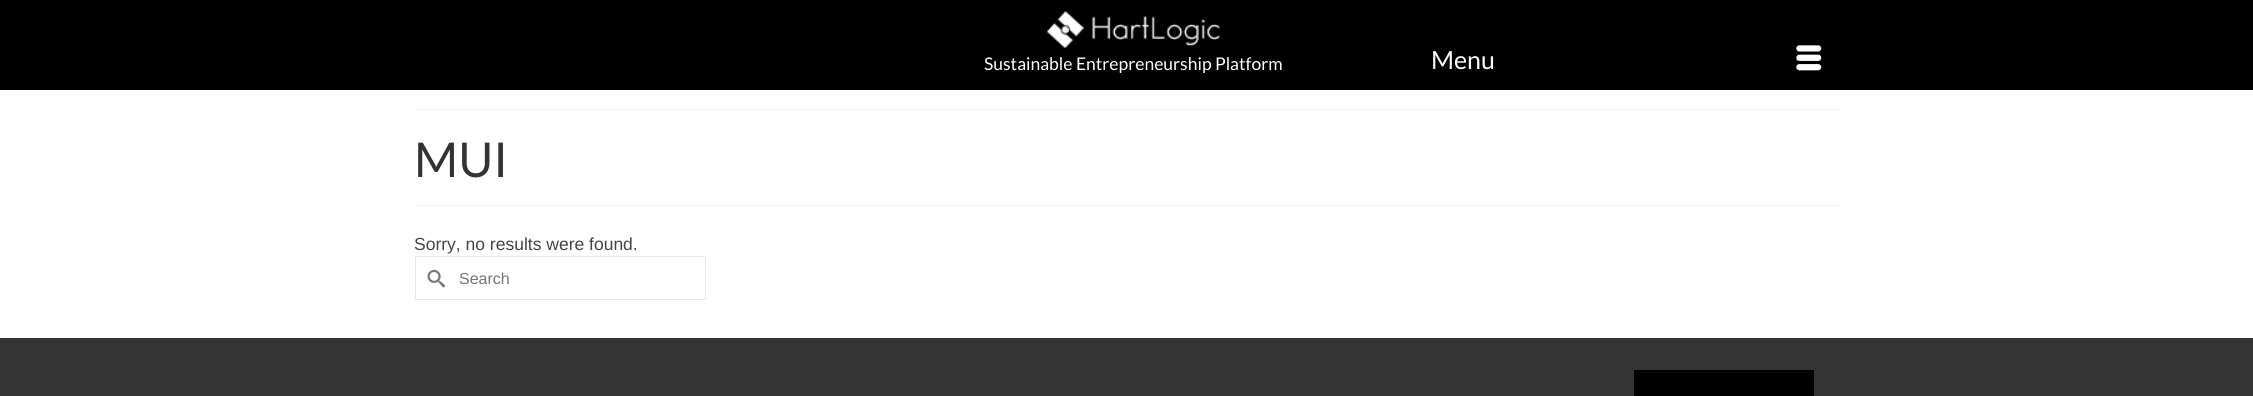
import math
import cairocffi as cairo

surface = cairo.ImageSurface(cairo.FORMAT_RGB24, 2253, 396)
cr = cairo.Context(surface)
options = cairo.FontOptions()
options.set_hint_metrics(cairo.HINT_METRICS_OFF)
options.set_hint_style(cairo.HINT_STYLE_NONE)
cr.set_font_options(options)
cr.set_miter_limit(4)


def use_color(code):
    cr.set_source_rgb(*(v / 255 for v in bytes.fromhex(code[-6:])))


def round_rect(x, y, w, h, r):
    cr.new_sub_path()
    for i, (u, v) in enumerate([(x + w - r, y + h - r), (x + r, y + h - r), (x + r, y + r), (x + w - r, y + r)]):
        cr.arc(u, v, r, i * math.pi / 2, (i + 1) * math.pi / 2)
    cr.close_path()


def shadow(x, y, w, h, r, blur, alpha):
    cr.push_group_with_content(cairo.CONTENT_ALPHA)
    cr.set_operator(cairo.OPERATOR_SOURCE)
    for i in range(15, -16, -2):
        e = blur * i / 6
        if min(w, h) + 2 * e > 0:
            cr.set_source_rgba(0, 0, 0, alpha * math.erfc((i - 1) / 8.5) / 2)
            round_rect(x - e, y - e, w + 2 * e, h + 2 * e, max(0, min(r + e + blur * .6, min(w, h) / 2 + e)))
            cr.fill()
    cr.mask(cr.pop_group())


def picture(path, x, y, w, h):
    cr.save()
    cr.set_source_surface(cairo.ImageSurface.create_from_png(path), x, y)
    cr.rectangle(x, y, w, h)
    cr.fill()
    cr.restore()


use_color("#ffffff")
cr.paint()
use_color("#000000")
cr.rectangle(0, 0, 2253, 90)
cr.fill()
picture("img1.png", 1047, 11, 174, 37)
cr.select_font_face("Lato")
cr.set_font_size(17.5)
use_color("#ffffff")
cr.move_to(984, 70)
cr.show_text("Sustainable Entrepreneurship Platform")
cr.set_font_size(25)
cr.move_to(1431, 69)
cr.show_text("Menu")
picture("img2.png", 1796, 45, 26, 26)
use_color("#f2f2f2")
cr.rectangle(415, 109, 1425, 1)
cr.fill()
cr.rectangle(415, 205, 1425, 1)
cr.fill()
cr.set_font_size(48)
use_color("#333333")
cr.move_to(414, 177)
cr.show_text("MUI")
cr.select_font_face("Liberation Sans")
cr.set_font_size(17.5)
use_color("#444444")
cr.move_to(414, 250)
cr.show_text("Sorry, no results were found.")
cr.save()
cr.set_fill_rule(cairo.FILL_RULE_EVEN_ODD)
cr.new_path()
cr.move_to(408, 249)
cr.line_to(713, 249)
cr.line_to(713, 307)
cr.line_to(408, 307)
cr.close_path()
cr.move_to(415, 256)
cr.line_to(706, 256)
cr.line_to(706, 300)
cr.line_to(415, 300)
cr.close_path()
cr.clip()
use_color("#ffffff")
shadow(415, 256, 291, 44, 0, 2, 1)
cr.restore()
cr.rectangle(415.5, 256.5, 290, 43)
use_color("#e7e7e7")
cr.set_line_width(1)
cr.stroke()
picture("img3.png", 427, 269, 18, 19)
cr.set_font_size(16)
use_color("#757575")
cr.move_to(459, 284)
cr.show_text("Search")
use_color("#353535")
cr.rectangle(0, 338, 2253, 58)
cr.fill()
use_color("#000000")
cr.rectangle(1634, 370, 180, 26)
cr.fill()
surface.write_to_png("result.png")
